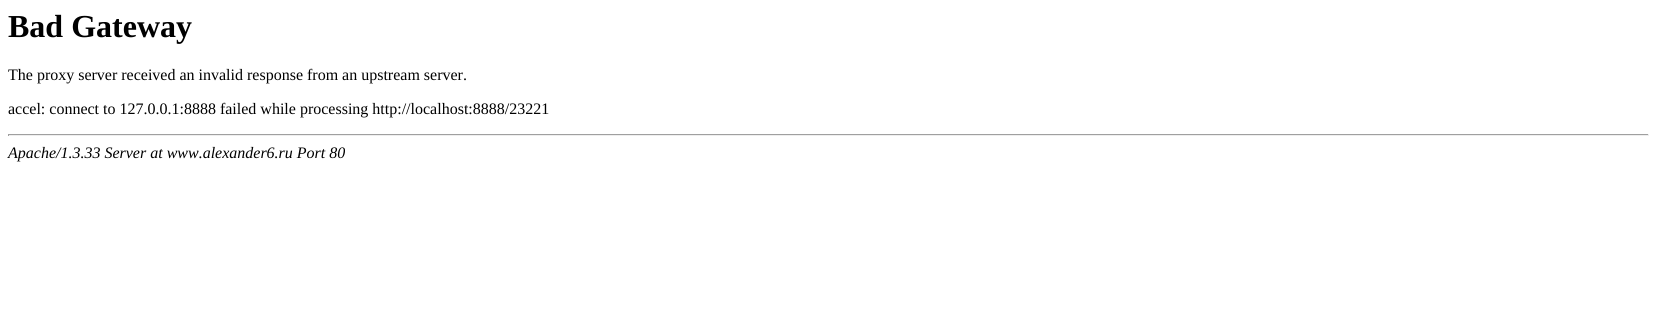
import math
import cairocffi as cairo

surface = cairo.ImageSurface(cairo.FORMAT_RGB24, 1657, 318)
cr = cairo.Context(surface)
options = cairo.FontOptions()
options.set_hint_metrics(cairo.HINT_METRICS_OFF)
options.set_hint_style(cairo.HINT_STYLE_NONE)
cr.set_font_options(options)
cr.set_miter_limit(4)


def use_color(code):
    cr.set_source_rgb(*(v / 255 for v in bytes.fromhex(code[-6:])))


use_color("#ffffff")
cr.paint()
cr.select_font_face("Liberation Serif", cairo.FONT_SLANT_NORMAL, cairo.FONT_WEIGHT_BOLD)
cr.set_font_size(32)
use_color("#000000")
cr.move_to(8, 37)
cr.show_text("Bad Gateway")
cr.select_font_face("Liberation Serif")
cr.set_font_size(16)
cr.move_to(8, 80)
cr.show_text("The proxy server received an invalid response from an upstream server.")
cr.move_to(8, 114)
cr.show_text("accel: connect to 127.0.0.1:8888 failed while processing http://localhost:8888/23221")
use_color("#9f9f9f")
cr.rectangle(8, 134, 1641, 1)
cr.fill()
use_color("#eeeeee")
cr.rectangle(1648, 134, 1, 2)
cr.fill()
cr.rectangle(8, 135, 1641, 1)
cr.fill()
use_color("#9f9f9f")
cr.rectangle(8, 134, 1, 2)
cr.fill()
cr.select_font_face("Liberation Serif", cairo.FONT_SLANT_ITALIC)
use_color("#000000")
cr.move_to(8, 158)
cr.show_text("Apache/1.3.33 Server at www.alexander6.ru Port 80")
surface.write_to_png("result.png")
